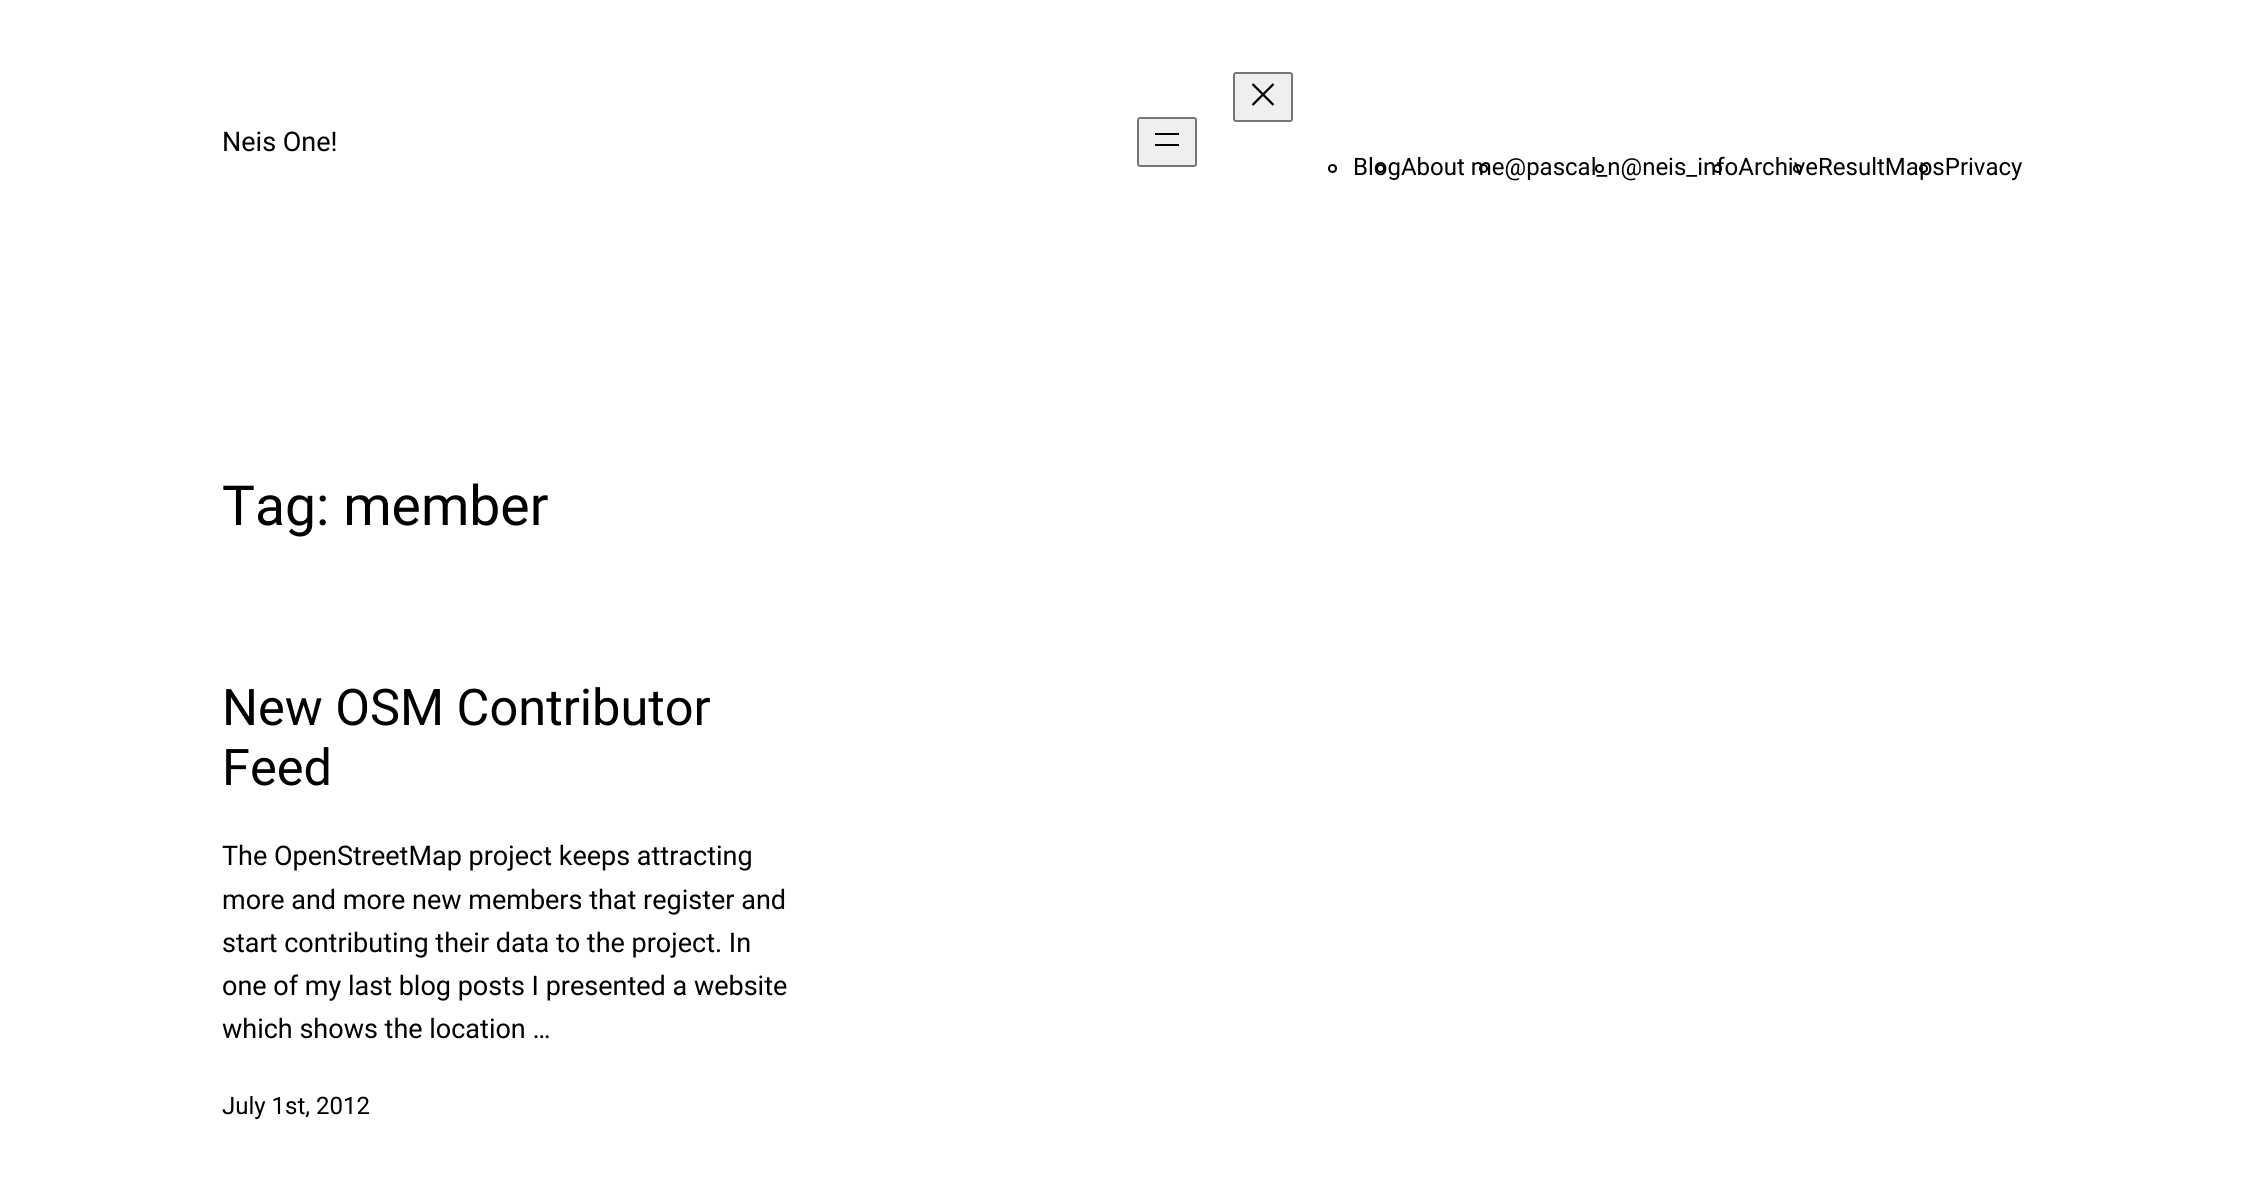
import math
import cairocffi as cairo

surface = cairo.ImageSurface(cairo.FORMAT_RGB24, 2243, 1202)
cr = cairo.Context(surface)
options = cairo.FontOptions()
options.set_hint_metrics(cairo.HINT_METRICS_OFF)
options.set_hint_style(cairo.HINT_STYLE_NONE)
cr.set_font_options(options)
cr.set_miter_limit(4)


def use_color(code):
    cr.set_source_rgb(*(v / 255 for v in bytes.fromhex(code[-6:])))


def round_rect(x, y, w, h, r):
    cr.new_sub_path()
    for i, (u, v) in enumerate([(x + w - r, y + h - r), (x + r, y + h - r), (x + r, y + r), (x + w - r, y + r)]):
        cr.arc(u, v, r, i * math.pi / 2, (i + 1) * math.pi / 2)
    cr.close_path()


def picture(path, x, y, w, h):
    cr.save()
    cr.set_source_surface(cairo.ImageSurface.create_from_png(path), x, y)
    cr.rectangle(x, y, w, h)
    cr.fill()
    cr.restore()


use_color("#ffffff")
cr.paint()
cr.select_font_face("Roboto")
cr.set_font_size(27)
use_color("#000000")
cr.move_to(222, 151)
cr.show_text("Neis One!")
use_color("#efefef")
round_rect(1138, 118, 58, 48, 2)
cr.fill_preserve()
use_color("#767676")
cr.stroke()
use_color("#000000")
cr.rectangle(1155, 133, 24, 2)
cr.fill()
cr.rectangle(1155, 144, 24, 2)
cr.fill()
use_color("#efefef")
round_rect(1234, 73, 58, 48, 2)
cr.fill_preserve()
use_color("#767676")
cr.stroke()
picture("img1.png", 1251, 83, 24, 23)
cr.arc(1332.5, 168.5, 3.5, 0, 2 * math.pi)
use_color("#000000")
cr.stroke()
cr.set_font_size(24)
cr.move_to(1353, 175)
cr.show_text("BlogAbout me@pascal_n@neis_infoArchiveResultMapsPrivacy")
cr.new_path()
cr.arc(1380.5, 168.5, 3.5, 0, 2 * math.pi)
cr.stroke()
cr.arc(1483.5, 168.5, 3.5, 0, 2 * math.pi)
cr.stroke()
cr.arc(1599.5, 168.5, 3.5, 0, 2 * math.pi)
cr.stroke()
cr.arc(1717.5, 168.5, 3.5, 0, 2 * math.pi)
cr.stroke()
cr.arc(1797.5, 168.5, 3.5, 0, 2 * math.pi)
cr.stroke()
cr.arc(1923.5, 168.5, 3.5, 0, 2 * math.pi)
cr.stroke()
cr.set_font_size(55.25)
cr.move_to(222, 525)
cr.show_text("Tag: member")
cr.set_font_size(50.5)
cr.move_to(222, 725)
cr.show_text("New OSM Contributor")
cr.move_to(222, 785)
cr.show_text("Feed")
cr.set_font_size(27)
cr.move_to(222, 865)
cr.show_text("The OpenStreetMap project keeps attracting")
cr.move_to(222, 909)
cr.show_text("more and more new members that register and")
cr.move_to(222, 952)
cr.show_text("start contributing their data to the project. In")
cr.move_to(222, 995)
cr.show_text("one of my last blog posts I presented a website")
cr.move_to(222, 1038)
cr.show_text("which shows the location …")
cr.set_font_size(24)
cr.move_to(222, 1114)
cr.show_text("July 1st, 2012")
surface.write_to_png("result.png")
